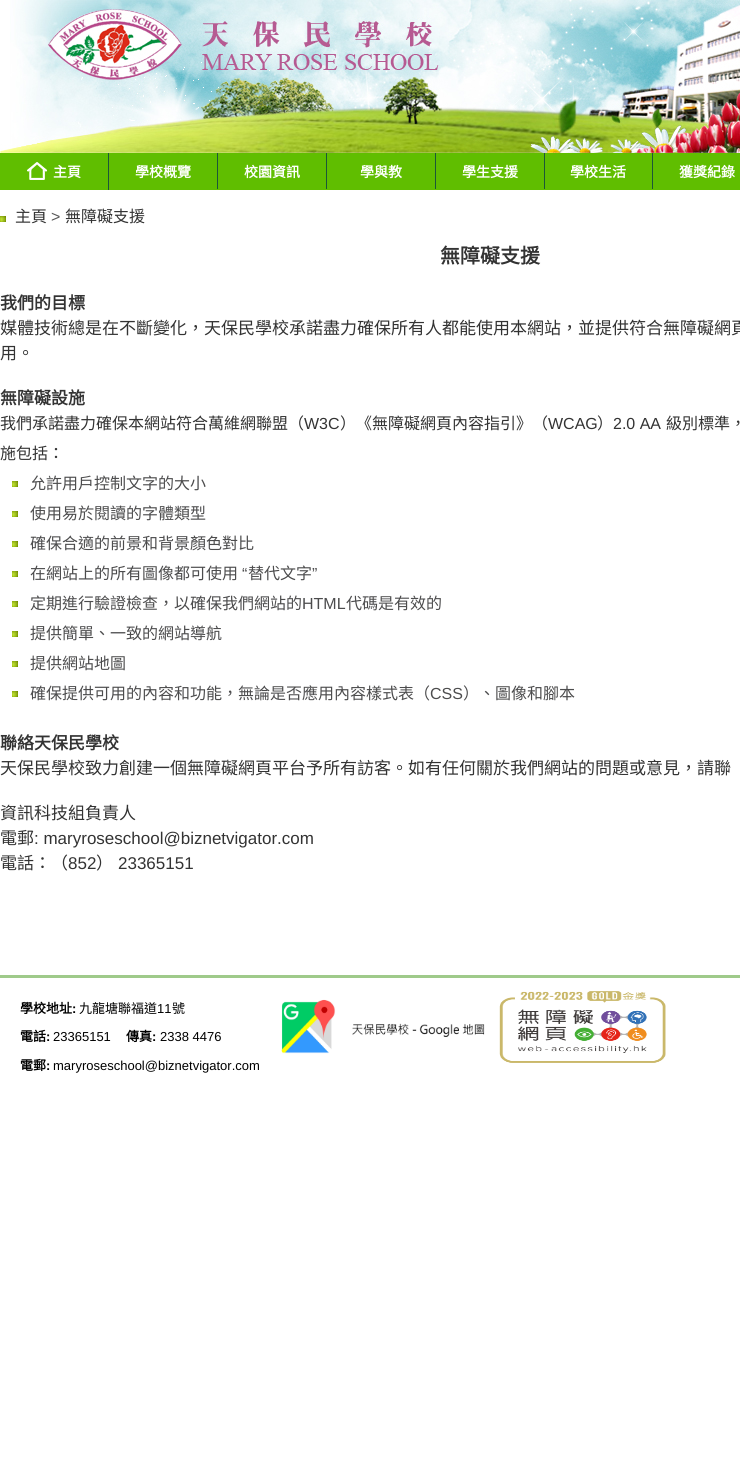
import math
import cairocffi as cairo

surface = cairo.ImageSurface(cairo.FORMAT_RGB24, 740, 1467)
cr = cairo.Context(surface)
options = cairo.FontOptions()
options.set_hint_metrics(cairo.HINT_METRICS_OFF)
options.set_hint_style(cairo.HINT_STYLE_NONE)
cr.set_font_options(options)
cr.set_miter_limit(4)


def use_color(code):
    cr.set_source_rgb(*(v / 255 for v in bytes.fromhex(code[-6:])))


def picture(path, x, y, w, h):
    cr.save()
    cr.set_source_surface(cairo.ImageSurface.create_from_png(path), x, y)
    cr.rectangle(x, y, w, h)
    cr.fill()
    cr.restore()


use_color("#ffffff")
cr.paint()
picture("img1.png", 0, 0, 740, 153)
use_color("#60be00")
cr.rectangle(0, 153, 740, 37)
cr.fill()
use_color("#1c5739")
cr.rectangle(108, 153, 1, 37)
cr.fill()
picture("img2.png", 27, 162, 20, 18)
cr.select_font_face("Noto Sans CJK HK", cairo.FONT_SLANT_NORMAL, cairo.FONT_WEIGHT_BOLD)
cr.set_font_size(14)
use_color("#ffffff")
cr.move_to(53, 177)
cr.show_text("主頁")
use_color("#1c5739")
cr.rectangle(217, 153, 1, 36)
cr.fill()
use_color("#ffffff")
cr.move_to(135, 177)
cr.show_text("學校概覽")
use_color("#1c5739")
cr.rectangle(326, 153, 1, 36)
cr.fill()
use_color("#ffffff")
cr.move_to(244, 177)
cr.show_text("校園資訊")
use_color("#1c5739")
cr.rectangle(435, 153, 1, 36)
cr.fill()
use_color("#ffffff")
cr.move_to(360, 177)
cr.show_text("學與教")
use_color("#1c5739")
cr.rectangle(544, 153, 1, 36)
cr.fill()
use_color("#ffffff")
cr.move_to(462, 177)
cr.show_text("學生支援")
use_color("#1c5739")
cr.rectangle(652, 153, 1, 36)
cr.fill()
use_color("#ffffff")
cr.move_to(570, 177)
cr.show_text("學校生活")
cr.move_to(679, 177)
cr.show_text("獲獎紀錄")
picture("img3.png", 0, 216, 6, 6)
cr.select_font_face("Noto Sans CJK HK")
cr.set_font_size(16)
use_color("#333333")
cr.move_to(15, 222)
cr.show_text("主頁")
cr.select_font_face("Liberation Sans")
use_color("#575757")
cr.move_to(51, 222)
cr.show_text(">")
cr.select_font_face("Noto Sans CJK HK")
use_color("#333333")
cr.move_to(65, 222)
cr.show_text("無障礙支援")
cr.select_font_face("Noto Sans CJK HK", cairo.FONT_SLANT_NORMAL, cairo.FONT_WEIGHT_BOLD)
cr.set_font_size(20)
cr.move_to(440, 263)
cr.show_text("無障礙支援")
cr.set_font_size(17)
cr.move_to(0, 309)
cr.show_text("我們的目標")
cr.select_font_face("Noto Sans CJK HK")
cr.move_to(0, 334)
cr.show_text("媒體技術總是在不斷變化，天保民學校承諾盡力確保所有人都能使用本網站，並提供符合無障礙網頁")
cr.move_to(0, 359)
cr.show_text("用。")
cr.select_font_face("Noto Sans CJK HK", cairo.FONT_SLANT_NORMAL, cairo.FONT_WEIGHT_BOLD)
cr.move_to(0, 404)
cr.show_text("無障礙設施")
cr.select_font_face("Noto Sans CJK HK")
cr.set_font_size(16)
cr.move_to(0, 429)
cr.show_text("我們承諾盡力確保本網站符合萬維網聯盟（")
cr.select_font_face("Liberation Sans")
cr.move_to(304, 429)
cr.show_text("W3C")
cr.select_font_face("Noto Sans CJK HK")
cr.move_to(340, 429)
cr.show_text("）《無障礙網頁內容指引》（")
cr.select_font_face("Liberation Sans")
cr.move_to(548, 429)
cr.show_text("WCAG")
cr.select_font_face("Noto Sans CJK HK")
cr.move_to(597, 429)
cr.show_text("）")
cr.select_font_face("Liberation Sans")
cr.move_to(613, 429)
cr.show_text("2.0 AA")
cr.select_font_face("Noto Sans CJK HK")
cr.move_to(666, 429)
cr.show_text("級別標準，")
cr.move_to(0, 459)
cr.show_text("施包括：")
picture("img4.png", 12, 481, 6, 6)
use_color("#4c4c4d")
cr.move_to(30, 489)
cr.show_text("允許用戶控制文字的大小")
picture("img4.png", 12, 511, 6, 6)
cr.move_to(30, 519)
cr.show_text("使用易於閱讀的字體類型")
picture("img4.png", 12, 541, 6, 6)
cr.move_to(30, 549)
cr.show_text("確保合適的前景和背景顏色對比")
picture("img4.png", 12, 571, 6, 6)
cr.move_to(30, 579)
cr.show_text("在網站上的所有圖像都可使用")
cr.select_font_face("Liberation Sans")
cr.move_to(242, 579)
cr.show_text("“")
cr.select_font_face("Noto Sans CJK HK")
cr.move_to(248, 579)
cr.show_text("替代文字")
cr.select_font_face("Liberation Sans")
cr.move_to(312, 579)
cr.show_text("”")
picture("img4.png", 12, 601, 6, 6)
cr.select_font_face("Noto Sans CJK HK")
cr.move_to(30, 609)
cr.show_text("定期進行驗證檢查，以確保我們網站的")
cr.select_font_face("Liberation Sans")
cr.move_to(302, 609)
cr.show_text("HTML")
cr.select_font_face("Noto Sans CJK HK")
cr.move_to(346, 609)
cr.show_text("代碼是有效的")
picture("img4.png", 12, 631, 6, 6)
cr.move_to(30, 639)
cr.show_text("提供簡單、一致的網站導航")
picture("img4.png", 12, 661, 6, 6)
cr.move_to(30, 669)
cr.show_text("提供網站地圖")
picture("img4.png", 12, 691, 6, 6)
cr.move_to(30, 699)
cr.show_text("確保提供可用的內容和功能，無論是否應用內容樣式表（")
cr.select_font_face("Liberation Sans")
cr.move_to(430, 699)
cr.show_text("CSS")
cr.select_font_face("Noto Sans CJK HK")
cr.move_to(463, 699)
cr.show_text("）、圖像和腳本")
cr.select_font_face("Noto Sans CJK HK", cairo.FONT_SLANT_NORMAL, cairo.FONT_WEIGHT_BOLD)
cr.set_font_size(17)
use_color("#333333")
cr.move_to(0, 749)
cr.show_text("聯絡天保民學校")
cr.select_font_face("Noto Sans CJK HK")
cr.move_to(0, 774)
cr.show_text("天保民學校致力創建一個無障礙網頁平台予所有訪客。如有任何關於我們網站的問題或意見，請聯")
cr.move_to(0, 819)
cr.show_text("資訊科技組負責人")
cr.move_to(0, 844)
cr.show_text("電郵")
cr.select_font_face("Liberation Sans")
cr.move_to(34, 844)
cr.show_text(": maryroseschool@biznetvigator.com")
cr.select_font_face("Noto Sans CJK HK")
cr.move_to(0, 869)
cr.show_text("電話：（")
cr.select_font_face("Liberation Sans")
cr.move_to(68, 869)
cr.show_text("852")
cr.select_font_face("Noto Sans CJK HK")
cr.move_to(96, 869)
cr.show_text("）")
cr.select_font_face("Liberation Sans")
cr.move_to(118, 869)
cr.show_text("23365151")
use_color("#9fca8a")
cr.rectangle(0, 975, 740, 3)
cr.fill()
cr.select_font_face("Noto Sans CJK HK", cairo.FONT_SLANT_NORMAL, cairo.FONT_WEIGHT_BOLD)
cr.set_font_size(13)
use_color("#000000")
cr.move_to(20, 1013)
cr.show_text("學校地址")
cr.select_font_face("Liberation Sans", cairo.FONT_SLANT_NORMAL, cairo.FONT_WEIGHT_BOLD)
cr.move_to(72, 1013)
cr.show_text(":")
cr.select_font_face("Noto Sans CJK HK")
cr.move_to(79, 1013)
cr.show_text("九龍塘聯福道")
cr.select_font_face("Liberation Sans")
cr.move_to(157, 1013)
cr.show_text("11")
cr.select_font_face("Noto Sans CJK HK")
cr.move_to(172, 1013)
cr.show_text("號")
cr.select_font_face("Noto Sans CJK HK", cairo.FONT_SLANT_NORMAL, cairo.FONT_WEIGHT_BOLD)
cr.move_to(20, 1041)
cr.show_text("電話")
cr.select_font_face("Liberation Sans", cairo.FONT_SLANT_NORMAL, cairo.FONT_WEIGHT_BOLD)
cr.move_to(46, 1041)
cr.show_text(":")
cr.select_font_face("Liberation Sans")
cr.move_to(53, 1041)
cr.show_text("23365151")
cr.select_font_face("Noto Sans CJK HK", cairo.FONT_SLANT_NORMAL, cairo.FONT_WEIGHT_BOLD)
cr.move_to(126, 1041)
cr.show_text("傳真")
cr.select_font_face("Liberation Sans", cairo.FONT_SLANT_NORMAL, cairo.FONT_WEIGHT_BOLD)
cr.move_to(152, 1041)
cr.show_text(":")
cr.select_font_face("Liberation Sans")
cr.move_to(160, 1041)
cr.show_text("2338 4476")
cr.select_font_face("Noto Sans CJK HK", cairo.FONT_SLANT_NORMAL, cairo.FONT_WEIGHT_BOLD)
cr.move_to(20, 1070)
cr.show_text("電郵")
cr.select_font_face("Liberation Sans", cairo.FONT_SLANT_NORMAL, cairo.FONT_WEIGHT_BOLD)
cr.move_to(46, 1070)
cr.show_text(":")
cr.select_font_face("Liberation Sans")
cr.move_to(53, 1070)
cr.show_text("maryroseschool@biznetvigator.com")
picture("img5.png", 281, 999, 204, 55)
picture("img6.png", 499, 991, 167, 72)
surface.write_to_png("result.png")
